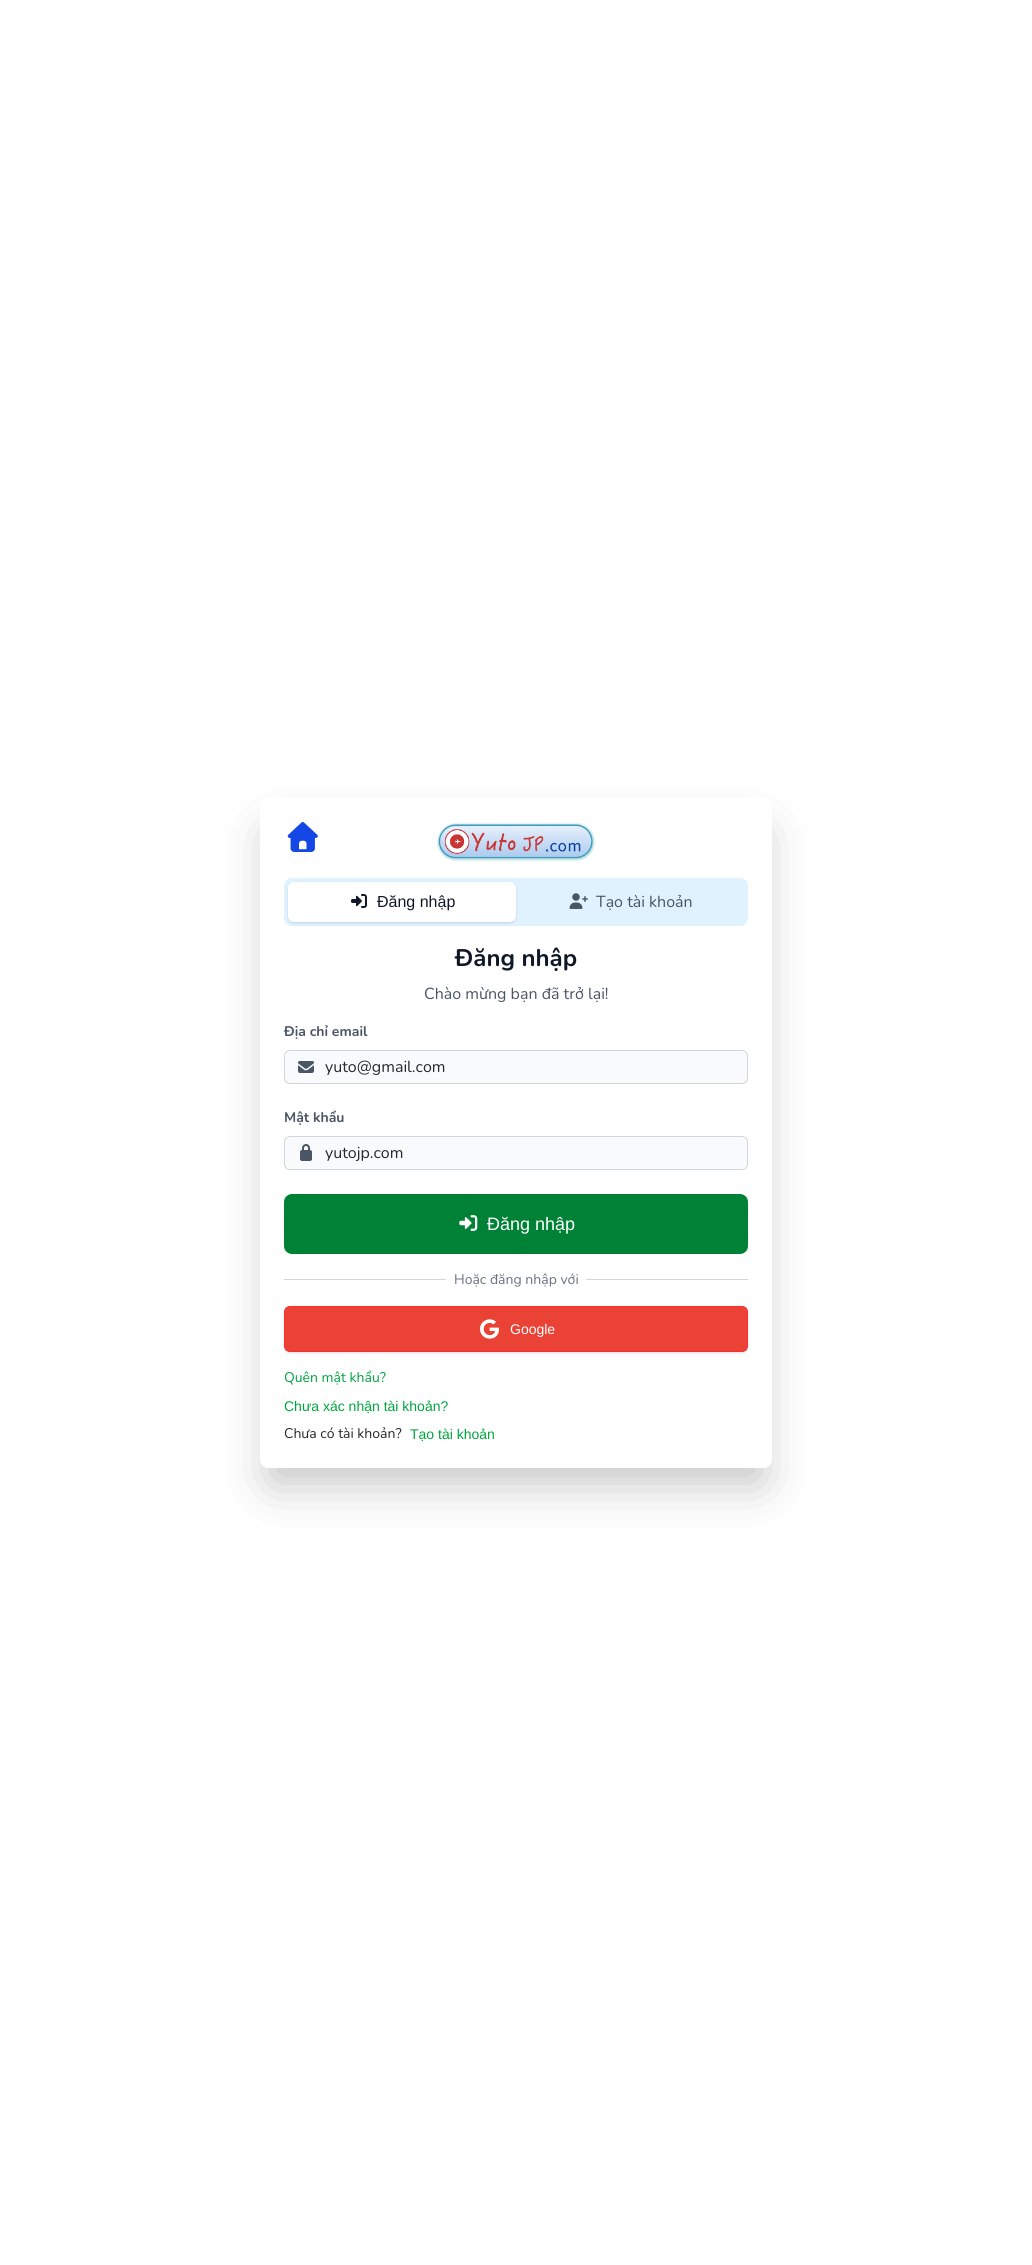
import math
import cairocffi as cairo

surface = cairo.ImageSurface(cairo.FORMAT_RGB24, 1032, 2265)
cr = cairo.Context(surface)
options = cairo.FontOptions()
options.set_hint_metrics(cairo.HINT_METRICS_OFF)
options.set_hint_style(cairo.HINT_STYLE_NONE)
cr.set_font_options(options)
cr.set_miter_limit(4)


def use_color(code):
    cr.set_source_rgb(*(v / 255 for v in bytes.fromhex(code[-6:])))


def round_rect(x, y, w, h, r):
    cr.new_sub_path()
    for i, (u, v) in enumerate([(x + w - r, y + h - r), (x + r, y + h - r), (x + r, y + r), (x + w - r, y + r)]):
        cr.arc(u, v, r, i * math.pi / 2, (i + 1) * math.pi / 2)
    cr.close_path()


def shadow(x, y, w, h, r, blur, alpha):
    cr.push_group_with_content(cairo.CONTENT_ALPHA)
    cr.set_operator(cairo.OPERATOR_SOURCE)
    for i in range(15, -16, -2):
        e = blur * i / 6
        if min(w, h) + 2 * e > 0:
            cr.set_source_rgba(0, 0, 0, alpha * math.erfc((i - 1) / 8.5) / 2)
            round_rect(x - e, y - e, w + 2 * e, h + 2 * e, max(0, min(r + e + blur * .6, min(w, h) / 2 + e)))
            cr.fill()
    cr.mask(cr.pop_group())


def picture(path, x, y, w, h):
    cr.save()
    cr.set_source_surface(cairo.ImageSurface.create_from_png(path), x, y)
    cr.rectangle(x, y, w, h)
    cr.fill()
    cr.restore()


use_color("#ffffff")
cr.paint()
use_color("#000000")
shadow(272, 835, 488, 646, 0, 25, 0.25)
use_color("#ffffff")
round_rect(260, 798, 512, 670, 8)
cr.fill()
picture("img1.png", 287, 822, 31, 30)
picture("img2.png", 436, 822, 160, 40)
use_color("#dff2fe")
round_rect(284, 878, 464, 48, 8)
cr.fill()
use_color("#000000")
shadow(289, 884, 226, 38, 5, 1, 0.1)
shadow(288, 883, 228, 40, 6, 1.5, 0.1)
use_color("#ffffff")
round_rect(288, 882, 228, 40, 6)
cr.fill()
picture("img3.png", 351, 894, 16, 14)
cr.select_font_face("Liberation Sans")
cr.set_font_size(16)
use_color("#101828")
cr.move_to(377, 907)
cr.show_text("Đăng nhập")
picture("img4.png", 569, 893, 19, 16)
cr.select_font_face("Nunito ExtraLight")
use_color("#4a5565")
cr.move_to(596, 907)
cr.show_text("Tạo tài khoản")
cr.select_font_face("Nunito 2 ExtraLight")
cr.set_font_size(24)
use_color("#101828")
cr.move_to(455, 966)
cr.show_text("Đăng nhập")
cr.select_font_face("Nunito ExtraLight")
cr.set_font_size(16)
use_color("#4a5565")
cr.move_to(424, 999)
cr.show_text("Chào mừng bạn đã trở lại!")
cr.select_font_face("Nunito 2 ExtraLight")
cr.set_font_size(14)
cr.move_to(284, 1036)
cr.show_text("Địa chỉ email")
use_color("#f9fafb")
round_rect(284.5, 1050.5, 463, 33, 5.5)
cr.fill_preserve()
use_color("#d1d5dc")
cr.set_line_width(1)
cr.stroke()
picture("img5.png", 298, 1061, 16, 12)
cr.select_font_face("Nunito ExtraLight")
cr.set_font_size(16)
use_color("#24292e")
cr.move_to(325, 1072)
cr.show_text("yuto@gmail.com")
cr.select_font_face("Nunito 2 ExtraLight")
cr.set_font_size(14)
use_color("#4a5565")
cr.move_to(284, 1122)
cr.show_text("Mật khẩu")
use_color("#f9fafb")
round_rect(284.5, 1136.5, 463, 33, 5.5)
cr.fill_preserve()
use_color("#d1d5dc")
cr.stroke()
picture("img6.png", 300, 1144, 12, 17)
cr.select_font_face("Nunito ExtraLight")
cr.set_font_size(16)
use_color("#24292e")
cr.move_to(325, 1158)
cr.show_text("yutojp.com")
use_color("#008236")
round_rect(284, 1194, 464, 60, 8)
cr.fill()
picture("img7.png", 459, 1215, 19, 16)
cr.select_font_face("Liberation Sans")
cr.set_font_size(18)
use_color("#ffffff")
cr.move_to(487, 1230)
cr.show_text("Đăng nhập")
use_color("#d1d5dc")
cr.rectangle(284, 1279, 464, 1)
cr.fill()
use_color("#ffffff")
cr.rectangle(446, 1279, 140, 1)
cr.fill()
cr.select_font_face("Nunito ExtraLight")
cr.set_font_size(14)
use_color("#6a7282")
cr.move_to(454, 1284)
cr.show_text("Hoặc đăng nhập với")
use_color("#000000")
shadow(285, 1308, 462, 44, 5, 1, 0.1)
shadow(284, 1307, 464, 46, 6, 1.5, 0.1)
use_color("#ea4335")
round_rect(284.5, 1306.5, 463, 45, 5.5)
cr.fill_preserve()
use_color("#fb2c36")
cr.stroke()
picture("img8.png", 480, 1319, 19, 20)
cr.select_font_face("Liberation Sans")
use_color("#ffffff")
cr.move_to(510, 1334)
cr.show_text("Google")
cr.select_font_face("Nunito ExtraLight")
use_color("#00a63e")
cr.move_to(284, 1382)
cr.show_text("Quên mật khẩu?")
cr.select_font_face("Liberation Sans")
cr.move_to(284, 1411)
cr.show_text("Chưa xác nhận tài khoản?")
cr.select_font_face("Nunito ExtraLight")
use_color("#24292e")
cr.move_to(284, 1438)
cr.show_text("Chưa có tài khoản?")
cr.select_font_face("Liberation Sans")
use_color("#00a63e")
cr.move_to(410, 1439)
cr.show_text("Tạo tài khoản")
surface.write_to_png("result.png")
